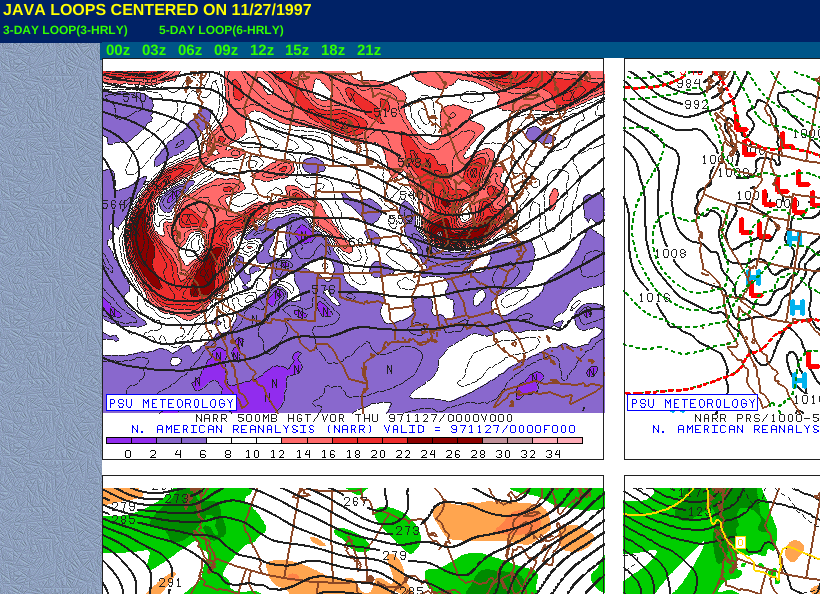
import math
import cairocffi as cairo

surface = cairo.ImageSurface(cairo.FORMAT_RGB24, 820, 594)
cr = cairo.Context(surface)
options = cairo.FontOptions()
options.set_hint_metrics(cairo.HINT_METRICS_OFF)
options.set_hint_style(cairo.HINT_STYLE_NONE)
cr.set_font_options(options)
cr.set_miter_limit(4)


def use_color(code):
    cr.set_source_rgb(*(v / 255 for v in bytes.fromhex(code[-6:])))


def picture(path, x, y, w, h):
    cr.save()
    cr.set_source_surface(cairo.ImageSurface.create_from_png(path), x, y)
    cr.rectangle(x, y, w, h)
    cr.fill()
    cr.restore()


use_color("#ffffff")
cr.paint()
picture("img1.png", 0, 43, 102, 551)
use_color("#002266")
cr.rectangle(0, 0, 820, 43)
cr.fill()
cr.select_font_face("Liberation Sans", cairo.FONT_SLANT_NORMAL, cairo.FONT_WEIGHT_BOLD)
cr.set_font_size(16)
use_color("#ffff00")
cr.move_to(3, 15)
cr.show_text("JAVA LOOPS CENTERED ON 11/27/1997")
cr.set_font_size(12)
use_color("#33ff00")
cr.move_to(3, 34)
cr.show_text("3-DAY LOOP(3-HRLY)")
cr.move_to(159, 34)
cr.show_text("5-DAY LOOP(6-HRLY)")
use_color("#005588")
cr.rectangle(100, 43, 2, 17)
cr.fill()
cr.rectangle(102, 42, 718, 16)
cr.fill()
cr.set_font_size(15)
use_color("#33ff00")
cr.move_to(106, 55)
cr.show_text("00z")
cr.move_to(142, 55)
cr.show_text("03z")
cr.move_to(178, 55)
cr.show_text("06z")
cr.move_to(214, 55)
cr.show_text("09z")
cr.move_to(250, 55)
cr.show_text("12z")
cr.move_to(285, 55)
cr.show_text("15z")
cr.move_to(321, 55)
cr.show_text("18z")
cr.move_to(357, 55)
cr.show_text("21z")
picture("img2.png", 102, 58, 718, 536)
surface.write_to_png("result.png")
